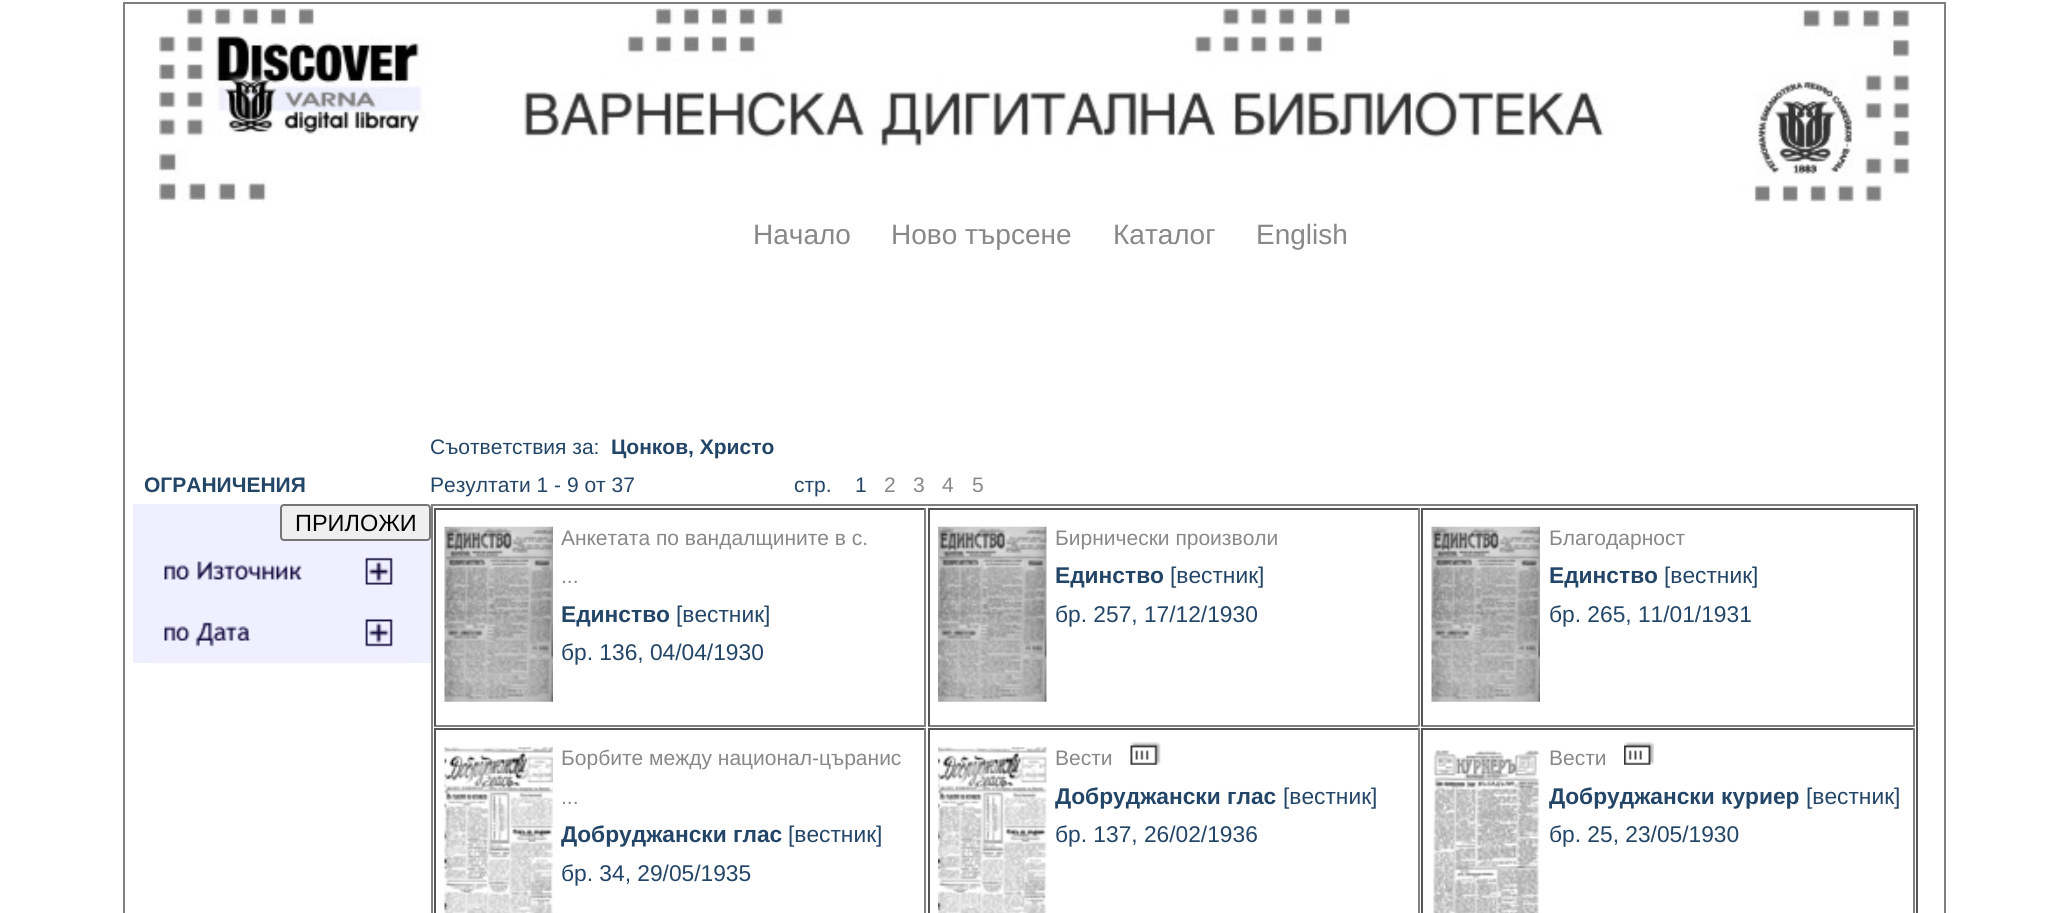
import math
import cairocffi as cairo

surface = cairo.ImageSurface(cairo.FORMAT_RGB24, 2066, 913)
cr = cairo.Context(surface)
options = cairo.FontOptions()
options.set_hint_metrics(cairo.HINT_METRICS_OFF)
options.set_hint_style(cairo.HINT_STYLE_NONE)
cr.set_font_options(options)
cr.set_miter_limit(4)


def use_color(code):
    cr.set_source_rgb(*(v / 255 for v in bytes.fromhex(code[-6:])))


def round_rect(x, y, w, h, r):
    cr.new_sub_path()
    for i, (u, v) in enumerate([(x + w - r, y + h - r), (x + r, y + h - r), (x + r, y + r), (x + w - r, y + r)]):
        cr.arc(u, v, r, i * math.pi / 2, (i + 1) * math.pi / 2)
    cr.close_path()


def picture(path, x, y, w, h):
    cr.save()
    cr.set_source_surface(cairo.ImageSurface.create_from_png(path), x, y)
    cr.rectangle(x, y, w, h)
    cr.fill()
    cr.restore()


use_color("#ffffff")
cr.paint()
cr.rectangle(124, 3, 1821, 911)
use_color("#808080")
cr.stroke()
picture("img1.png", 159, 8, 1751, 194)
cr.select_font_face("Liberation Sans")
cr.set_font_size(28)
use_color("#888888")
cr.move_to(753, 244)
cr.show_text("Начало")
cr.move_to(891, 244)
cr.show_text("Ново търсене")
cr.move_to(1113, 244)
cr.show_text("Каталог")
cr.move_to(1256, 244)
cr.show_text("English")
cr.select_font_face("Liberation Sans", cairo.FONT_SLANT_NORMAL, cairo.FONT_WEIGHT_BOLD)
cr.set_font_size(21)
use_color("#234567")
cr.move_to(144, 492)
cr.show_text("ОГРАНИЧЕНИЯ")
use_color("#efefff")
cr.rectangle(133, 504, 298, 159)
cr.fill()
use_color("#efefef")
round_rect(281, 505, 149, 35, 3)
cr.fill_preserve()
use_color("#767676")
cr.stroke()
cr.select_font_face("Liberation Sans")
cr.set_font_size(23.5)
use_color("#000000")
cr.move_to(295, 531)
cr.show_text("ПРИЛОЖИ")
picture("img2.png", 164, 557, 229, 28)
picture("img3.png", 151, 619, 262, 45)
cr.set_font_size(21)
use_color("#234567")
cr.move_to(430, 454)
cr.show_text("Съответствия за:")
cr.select_font_face("Liberation Sans", cairo.FONT_SLANT_NORMAL, cairo.FONT_WEIGHT_BOLD)
cr.move_to(611, 454)
cr.show_text("Цонков, Христо")
cr.select_font_face("Liberation Sans")
cr.move_to(430, 492)
cr.show_text("Резултати 1 - 9 от 37")
cr.move_to(794, 492)
cr.show_text("стр.    1")
use_color("#888888")
cr.move_to(884, 492)
cr.show_text("2")
cr.move_to(913, 492)
cr.show_text("3")
cr.move_to(942, 492)
cr.show_text("4")
cr.move_to(972, 492)
cr.show_text("5")
use_color("#808080")
cr.rectangle(431, 504, 1487, 2)
cr.fill()
use_color("#555555")
cr.rectangle(1916, 504, 2, 409)
cr.fill()
use_color("#808080")
cr.rectangle(431, 504, 2, 409)
cr.fill()
use_color("#555555")
cr.rectangle(434, 508, 492, 2)
cr.fill()
use_color("#808080")
cr.rectangle(924, 508, 2, 218)
cr.fill()
cr.rectangle(434, 725, 492, 2)
cr.fill()
use_color("#555555")
cr.rectangle(434, 508, 2, 218)
cr.fill()
picture("img4.png", 444, 526, 109, 176)
use_color("#888888")
cr.move_to(561, 545)
cr.show_text("Анкетата по вандалщините в с.")
cr.move_to(561, 583)
cr.show_text("...")
cr.select_font_face("Liberation Sans", cairo.FONT_SLANT_NORMAL, cairo.FONT_WEIGHT_BOLD)
cr.set_font_size(22.75)
use_color("#234567")
cr.move_to(561, 622)
cr.show_text("Единство")
cr.select_font_face("Liberation Sans")
cr.move_to(676, 622)
cr.show_text("[вестник]")
cr.move_to(561, 660)
cr.show_text("бр. 136, 04/04/1930")
use_color("#555555")
cr.rectangle(928, 508, 491, 2)
cr.fill()
use_color("#808080")
cr.rectangle(1418, 508, 2, 218)
cr.fill()
cr.rectangle(928, 725, 491, 2)
cr.fill()
use_color("#555555")
cr.rectangle(928, 508, 2, 218)
cr.fill()
picture("img5.png", 938, 526, 109, 176)
cr.set_font_size(21)
use_color("#888888")
cr.move_to(1055, 545)
cr.show_text("Бирнически произволи")
cr.select_font_face("Liberation Sans", cairo.FONT_SLANT_NORMAL, cairo.FONT_WEIGHT_BOLD)
cr.set_font_size(22.75)
use_color("#234567")
cr.move_to(1055, 583)
cr.show_text("Единство")
cr.select_font_face("Liberation Sans")
cr.move_to(1170, 583)
cr.show_text("[вестник]")
cr.move_to(1055, 622)
cr.show_text("бр. 257, 17/12/1930")
use_color("#555555")
cr.rectangle(1421, 508, 494, 2)
cr.fill()
use_color("#808080")
cr.rectangle(1913, 508, 2, 218)
cr.fill()
cr.rectangle(1421, 725, 494, 2)
cr.fill()
use_color("#555555")
cr.rectangle(1421, 508, 2, 218)
cr.fill()
picture("img6.png", 1431, 526, 109, 176)
cr.set_font_size(21)
use_color("#888888")
cr.move_to(1549, 545)
cr.show_text("Благодарност")
cr.select_font_face("Liberation Sans", cairo.FONT_SLANT_NORMAL, cairo.FONT_WEIGHT_BOLD)
cr.set_font_size(22.75)
use_color("#234567")
cr.move_to(1549, 583)
cr.show_text("Единство")
cr.select_font_face("Liberation Sans")
cr.move_to(1664, 583)
cr.show_text("[вестник]")
cr.move_to(1549, 622)
cr.show_text("бр. 265, 11/01/1931")
use_color("#555555")
cr.rectangle(434, 728, 492, 2)
cr.fill()
use_color("#808080")
cr.rectangle(924, 728, 2, 185)
cr.fill()
use_color("#555555")
cr.rectangle(434, 728, 2, 185)
cr.fill()
picture("img7.png", 444, 747, 109, 166)
cr.set_font_size(21)
use_color("#888888")
cr.move_to(561, 765)
cr.show_text("Борбите между национал-църанис")
cr.move_to(561, 804)
cr.show_text("...")
cr.select_font_face("Liberation Sans", cairo.FONT_SLANT_NORMAL, cairo.FONT_WEIGHT_BOLD)
cr.set_font_size(22.75)
use_color("#234567")
cr.move_to(561, 842)
cr.show_text("Добруджански глас")
cr.select_font_face("Liberation Sans")
cr.move_to(788, 842)
cr.show_text("[вестник]")
cr.move_to(561, 881)
cr.show_text("бр. 34, 29/05/1935")
use_color("#555555")
cr.rectangle(928, 728, 491, 2)
cr.fill()
use_color("#808080")
cr.rectangle(1418, 728, 2, 185)
cr.fill()
use_color("#555555")
cr.rectangle(928, 728, 2, 185)
cr.fill()
picture("img8.png", 938, 747, 109, 166)
cr.set_font_size(21)
use_color("#888888")
cr.move_to(1055, 765)
cr.show_text("Вести")
picture("img9.png", 1130, 742, 31, 23)
cr.select_font_face("Liberation Sans", cairo.FONT_SLANT_NORMAL, cairo.FONT_WEIGHT_BOLD)
cr.set_font_size(22.75)
use_color("#234567")
cr.move_to(1055, 804)
cr.show_text("Добруджански глас")
cr.select_font_face("Liberation Sans")
cr.move_to(1283, 804)
cr.show_text("[вестник]")
cr.move_to(1055, 842)
cr.show_text("бр. 137, 26/02/1936")
use_color("#555555")
cr.rectangle(1421, 728, 494, 2)
cr.fill()
use_color("#808080")
cr.rectangle(1913, 728, 2, 185)
cr.fill()
use_color("#555555")
cr.rectangle(1421, 728, 2, 185)
cr.fill()
picture("img10.png", 1433, 749, 107, 164)
cr.set_font_size(21)
use_color("#888888")
cr.move_to(1549, 765)
cr.show_text("Вести")
picture("img11.png", 1624, 742, 30, 23)
cr.select_font_face("Liberation Sans", cairo.FONT_SLANT_NORMAL, cairo.FONT_WEIGHT_BOLD)
cr.set_font_size(22.75)
use_color("#234567")
cr.move_to(1549, 804)
cr.show_text("Добруджански куриер")
cr.select_font_face("Liberation Sans")
cr.move_to(1806, 804)
cr.show_text("[вестник]")
cr.move_to(1549, 842)
cr.show_text("бр. 25, 23/05/1930")
surface.write_to_png("result.png")
